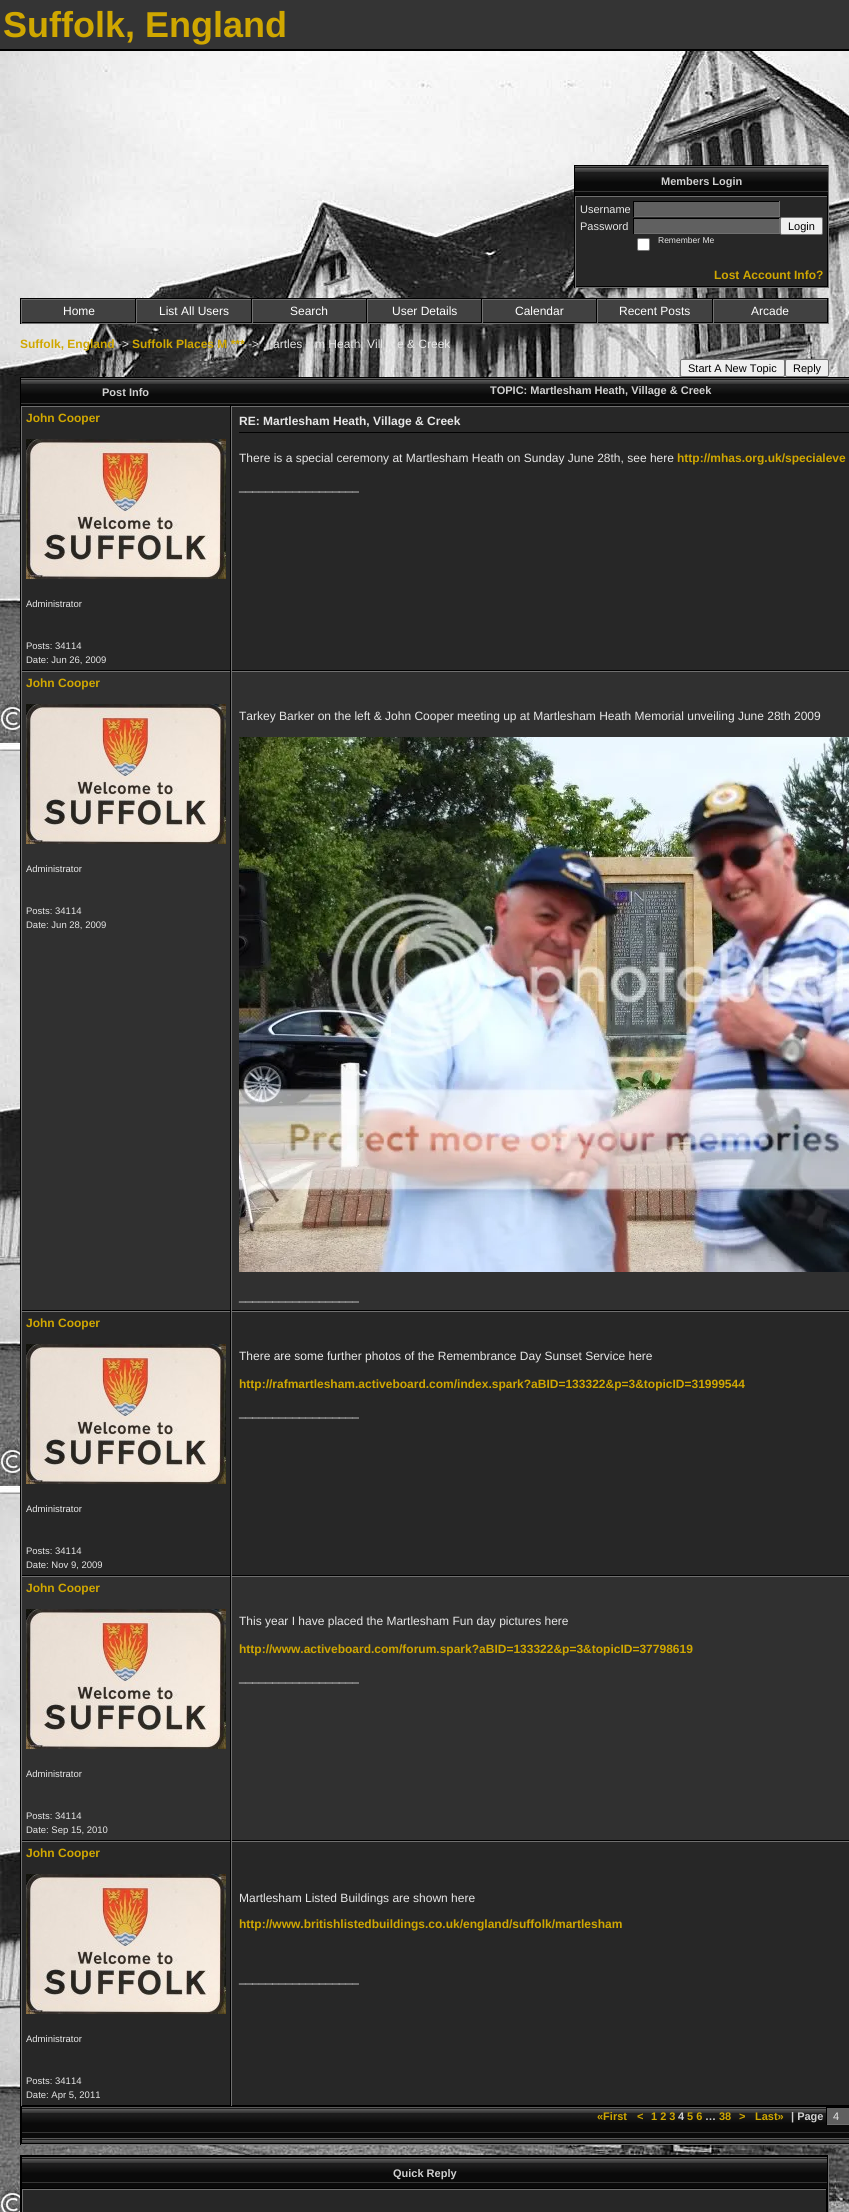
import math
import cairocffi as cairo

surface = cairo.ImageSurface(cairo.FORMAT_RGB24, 849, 2212)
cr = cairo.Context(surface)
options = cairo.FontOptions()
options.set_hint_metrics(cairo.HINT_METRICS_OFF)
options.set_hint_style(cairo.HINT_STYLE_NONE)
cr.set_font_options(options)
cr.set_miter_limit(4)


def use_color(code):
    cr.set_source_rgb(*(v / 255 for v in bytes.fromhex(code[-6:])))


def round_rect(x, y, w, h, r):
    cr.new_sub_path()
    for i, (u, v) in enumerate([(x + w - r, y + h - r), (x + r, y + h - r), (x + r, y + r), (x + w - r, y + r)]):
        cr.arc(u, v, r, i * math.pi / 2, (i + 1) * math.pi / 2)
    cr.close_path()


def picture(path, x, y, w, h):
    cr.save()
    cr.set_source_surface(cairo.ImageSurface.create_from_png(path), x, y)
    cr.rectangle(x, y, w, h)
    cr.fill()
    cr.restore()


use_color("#ffffff")
cr.paint()
picture("img1.png", 0, 51, 849, 2161)
use_color("#343434")
cr.rectangle(0, 0, 849, 49)
cr.fill()
use_color("#000000")
cr.rectangle(0, 49, 849, 2)
cr.fill()
cr.select_font_face("Liberation Sans", cairo.FONT_SLANT_NORMAL, cairo.FONT_WEIGHT_BOLD)
cr.set_font_size(36)
use_color("#d0a700")
cr.move_to(3, 37)
cr.show_text("Suffolk, England")
use_color("#000000")
cr.rectangle(575, 165, 253, 1)
cr.fill()
use_color("#707070")
cr.rectangle(828, 165, 1, 123)
cr.fill()
cr.rectangle(574, 287, 255, 1)
cr.fill()
use_color("#000000")
cr.rectangle(574, 165, 1, 123)
cr.fill()
picture("img2.png", 575, 166, 253, 29)
use_color("#010101")
cr.rectangle(575, 195, 253, 1)
cr.fill()
cr.set_font_size(11)
use_color("#d1d1d1")
cr.move_to(661, 185)
cr.show_text("Members Login")
use_color("#272727")
cr.rectangle(576, 197, 251, 89)
cr.fill()
use_color("#707070")
cr.rectangle(575, 196, 253, 1)
cr.fill()
use_color("#000000")
cr.rectangle(827, 196, 1, 91)
cr.fill()
cr.rectangle(575, 286, 253, 1)
cr.fill()
use_color("#707070")
cr.rectangle(575, 196, 1, 91)
cr.fill()
cr.select_font_face("Liberation Sans")
use_color("#e7e7e7")
cr.move_to(580, 213)
cr.show_text("Username")
use_color("#606060")
cr.rectangle(634, 202, 145, 14)
cr.fill()
use_color("#000000")
cr.rectangle(633, 201, 147, 1)
cr.fill()
use_color("#707070")
cr.rectangle(779, 201, 1, 16)
cr.fill()
cr.rectangle(633, 216, 147, 1)
cr.fill()
use_color("#000000")
cr.rectangle(633, 201, 1, 16)
cr.fill()
use_color("#e7e7e7")
cr.move_to(580, 230)
cr.show_text("Password")
use_color("#606060")
cr.rectangle(634, 219, 145, 14)
cr.fill()
use_color("#000000")
cr.rectangle(633, 218, 147, 1)
cr.fill()
use_color("#707070")
cr.rectangle(779, 218, 1, 16)
cr.fill()
cr.rectangle(633, 233, 147, 1)
cr.fill()
use_color("#000000")
cr.rectangle(633, 218, 1, 16)
cr.fill()
use_color("#efefef")
round_rect(780.5, 217.5, 42, 17, 1.5)
cr.fill_preserve()
use_color("#767676")
cr.set_line_width(1)
cr.stroke()
use_color("#000000")
cr.move_to(788, 230)
cr.show_text("Login")
use_color("#ffffff")
round_rect(637.5, 238.5, 12, 12, 1.5)
cr.fill_preserve()
use_color("#767676")
cr.stroke()
cr.set_font_size(8.5)
use_color("#e7e7e7")
cr.move_to(658, 243)
cr.show_text("Remember Me")
cr.select_font_face("Liberation Sans", cairo.FONT_SLANT_NORMAL, cairo.FONT_WEIGHT_BOLD)
cr.set_font_size(12)
use_color("#d0a700")
cr.move_to(714, 279)
cr.show_text("Lost Account Info?")
use_color("#000000")
cr.rectangle(21, 298, 807, 1)
cr.fill()
use_color("#707070")
cr.rectangle(828, 298, 1, 26)
cr.fill()
cr.rectangle(20, 323, 809, 1)
cr.fill()
use_color("#000000")
cr.rectangle(20, 298, 1, 26)
cr.fill()
use_color("#414141")
cr.rectangle(22, 300, 113, 22)
cr.fill()
use_color("#707070")
cr.rectangle(21, 299, 807, 1)
cr.fill()
use_color("#000000")
cr.rectangle(135, 299, 1, 24)
cr.fill()
cr.rectangle(21, 322, 115, 1)
cr.fill()
use_color("#707070")
cr.rectangle(21, 299, 1, 24)
cr.fill()
cr.select_font_face("Liberation Sans")
use_color("#ffffff")
cr.move_to(63, 315)
cr.show_text("Home")
use_color("#414141")
cr.rectangle(137, 300, 114, 22)
cr.fill()
use_color("#000000")
cr.rectangle(251, 299, 1, 24)
cr.fill()
cr.rectangle(136, 322, 116, 1)
cr.fill()
use_color("#707070")
cr.rectangle(136, 299, 1, 24)
cr.fill()
use_color("#ffffff")
cr.move_to(159, 315)
cr.show_text("List All Users")
use_color("#414141")
cr.rectangle(253, 300, 113, 22)
cr.fill()
use_color("#000000")
cr.rectangle(366, 299, 1, 24)
cr.fill()
cr.rectangle(252, 322, 115, 1)
cr.fill()
use_color("#707070")
cr.rectangle(252, 299, 1, 24)
cr.fill()
use_color("#ffffff")
cr.move_to(290, 315)
cr.show_text("Search")
use_color("#414141")
cr.rectangle(368, 300, 113, 22)
cr.fill()
use_color("#000000")
cr.rectangle(481, 299, 1, 24)
cr.fill()
cr.rectangle(367, 322, 115, 1)
cr.fill()
use_color("#707070")
cr.rectangle(367, 299, 1, 24)
cr.fill()
use_color("#ffffff")
cr.move_to(392, 315)
cr.show_text("User Details")
use_color("#414141")
cr.rectangle(483, 300, 113, 22)
cr.fill()
use_color("#000000")
cr.rectangle(596, 299, 1, 24)
cr.fill()
cr.rectangle(482, 322, 115, 1)
cr.fill()
use_color("#707070")
cr.rectangle(482, 299, 1, 24)
cr.fill()
use_color("#ffffff")
cr.move_to(515, 315)
cr.show_text("Calendar")
use_color("#414141")
cr.rectangle(598, 300, 114, 22)
cr.fill()
use_color("#000000")
cr.rectangle(712, 299, 1, 24)
cr.fill()
cr.rectangle(597, 322, 116, 1)
cr.fill()
use_color("#707070")
cr.rectangle(597, 299, 1, 24)
cr.fill()
use_color("#ffffff")
cr.move_to(619, 315)
cr.show_text("Recent Posts")
use_color("#414141")
cr.rectangle(714, 300, 113, 22)
cr.fill()
use_color("#000000")
cr.rectangle(827, 299, 1, 24)
cr.fill()
cr.rectangle(713, 322, 115, 1)
cr.fill()
use_color("#707070")
cr.rectangle(713, 299, 1, 24)
cr.fill()
use_color("#ffffff")
cr.move_to(751, 315)
cr.show_text("Arcade")
cr.select_font_face("Liberation Sans", cairo.FONT_SLANT_NORMAL, cairo.FONT_WEIGHT_BOLD)
use_color("#d0a700")
cr.move_to(20, 348)
cr.show_text("Suffolk, England")
cr.select_font_face("Liberation Sans")
use_color("#e7e7e7")
cr.move_to(118, 348)
cr.show_text("->")
cr.select_font_face("Liberation Sans", cairo.FONT_SLANT_NORMAL, cairo.FONT_WEIGHT_BOLD)
use_color("#d0a700")
cr.move_to(132, 348)
cr.show_text("Suffolk Places M ***")
cr.select_font_face("Liberation Sans")
use_color("#e7e7e7")
cr.move_to(248, 348)
cr.show_text("->")
cr.move_to(273, 348)
cr.show_text("artles")
cr.move_to(315, 348)
cr.show_text("m Heath, Vill")
cr.move_to(397, 348)
cr.show_text("e & Creek")
use_color("#efefef")
round_rect(680.5, 359.5, 104, 17, 1.5)
cr.fill_preserve()
use_color("#767676")
cr.stroke()
cr.set_font_size(11)
use_color("#000000")
cr.move_to(688, 372)
cr.show_text("Start A New Topic")
use_color("#efefef")
round_rect(785.5, 359.5, 43, 17, 1.5)
cr.fill_preserve()
use_color("#767676")
cr.stroke()
use_color("#000000")
cr.move_to(793, 372)
cr.show_text("Reply")
cr.rectangle(21, 377, 828, 1)
cr.fill()
use_color("#707070")
cr.rectangle(20, 2144, 829, 1)
cr.fill()
use_color("#000000")
cr.rectangle(20, 377, 1, 1768)
cr.fill()
picture("img3.png", 21, 378, 210, 27)
use_color("#010101")
cr.rectangle(21, 405, 828, 1)
cr.fill()
cr.select_font_face("Liberation Sans", cairo.FONT_SLANT_NORMAL, cairo.FONT_WEIGHT_BOLD)
use_color("#d1d1d1")
cr.move_to(102, 396)
cr.show_text("Post Info")
picture("img4.png", 231, 378, 618, 27)
cr.move_to(490, 394)
cr.show_text("TOPIC: Martlesham Heath, Village & Creek")
use_color("#272727")
cr.rectangle(22, 407, 208, 263)
cr.fill()
use_color("#707070")
cr.rectangle(21, 406, 828, 1)
cr.fill()
use_color("#000000")
cr.rectangle(230, 406, 1, 265)
cr.fill()
cr.rectangle(21, 670, 828, 1)
cr.fill()
use_color("#707070")
cr.rectangle(21, 406, 1, 265)
cr.fill()
cr.set_font_size(12)
use_color("#d0a700")
cr.move_to(26, 422)
cr.show_text("John Cooper")
picture("img5.png", 26, 439, 200, 140)
cr.select_font_face("Liberation Sans")
cr.set_font_size(9.5)
use_color("#e7e7e7")
cr.move_to(26, 607)
cr.show_text("Administrator")
cr.move_to(26, 649)
cr.show_text("Posts: 34114")
cr.move_to(26, 663)
cr.show_text("Date: Jun 26, 2009")
use_color("#272727")
cr.rectangle(232, 407, 617, 263)
cr.fill()
use_color("#707070")
cr.rectangle(231, 406, 1, 265)
cr.fill()
cr.select_font_face("Liberation Sans", cairo.FONT_SLANT_NORMAL, cairo.FONT_WEIGHT_BOLD)
cr.set_font_size(12)
use_color("#e7e7e7")
cr.move_to(239, 425)
cr.show_text("RE: Martlesham Heath, Village & Creek")
use_color("#010101")
cr.rectangle(239, 432, 610, 1)
cr.fill()
cr.select_font_face("Liberation Sans")
use_color("#e7e7e7")
cr.move_to(239, 462)
cr.show_text("There is a special ceremony at Martlesham Heath on Sunday June 28th, see here")
cr.select_font_face("Liberation Sans", cairo.FONT_SLANT_NORMAL, cairo.FONT_WEIGHT_BOLD)
use_color("#d0a700")
cr.move_to(677, 462)
cr.show_text("http://mhas.org.uk/specialeve")
cr.select_font_face("Liberation Sans")
use_color("#e7e7e7")
cr.move_to(239, 490)
cr.show_text("__________________")
use_color("#303030")
cr.rectangle(22, 672, 208, 638)
cr.fill()
use_color("#707070")
cr.rectangle(21, 671, 828, 1)
cr.fill()
use_color("#000000")
cr.rectangle(230, 671, 1, 640)
cr.fill()
cr.rectangle(21, 1310, 828, 1)
cr.fill()
use_color("#707070")
cr.rectangle(21, 671, 1, 640)
cr.fill()
cr.select_font_face("Liberation Sans", cairo.FONT_SLANT_NORMAL, cairo.FONT_WEIGHT_BOLD)
use_color("#d0a700")
cr.move_to(26, 687)
cr.show_text("John Cooper")
picture("img5.png", 26, 704, 200, 140)
cr.select_font_face("Liberation Sans")
cr.set_font_size(9.5)
use_color("#e7e7e7")
cr.move_to(26, 872)
cr.show_text("Administrator")
cr.move_to(26, 914)
cr.show_text("Posts: 34114")
cr.move_to(26, 928)
cr.show_text("Date: Jun 28, 2009")
use_color("#303030")
cr.rectangle(232, 672, 617, 638)
cr.fill()
use_color("#707070")
cr.rectangle(231, 671, 1, 640)
cr.fill()
cr.set_font_size(12)
use_color("#e7e7e7")
cr.move_to(239, 720)
cr.show_text("Tarkey Barker on the left & John Cooper meeting up at Martlesham Heath Memorial unveiling June 28th 2009")
picture("img6.png", 239, 737, 610, 535)
cr.move_to(239, 1300)
cr.show_text("__________________")
use_color("#272727")
cr.rectangle(22, 1312, 208, 263)
cr.fill()
use_color("#707070")
cr.rectangle(21, 1311, 828, 1)
cr.fill()
use_color("#000000")
cr.rectangle(230, 1311, 1, 265)
cr.fill()
cr.rectangle(21, 1575, 828, 1)
cr.fill()
use_color("#707070")
cr.rectangle(21, 1311, 1, 265)
cr.fill()
cr.select_font_face("Liberation Sans", cairo.FONT_SLANT_NORMAL, cairo.FONT_WEIGHT_BOLD)
use_color("#d0a700")
cr.move_to(26, 1327)
cr.show_text("John Cooper")
picture("img5.png", 26, 1344, 200, 140)
cr.select_font_face("Liberation Sans")
cr.set_font_size(9.5)
use_color("#e7e7e7")
cr.move_to(26, 1512)
cr.show_text("Administrator")
cr.move_to(26, 1554)
cr.show_text("Posts: 34114")
cr.move_to(26, 1568)
cr.show_text("Date: Nov 9, 2009")
use_color("#272727")
cr.rectangle(232, 1312, 617, 263)
cr.fill()
use_color("#707070")
cr.rectangle(231, 1311, 1, 265)
cr.fill()
cr.set_font_size(12)
use_color("#e7e7e7")
cr.move_to(239, 1360)
cr.show_text("There are some further photos of the Remembrance Day Sunset Service here")
cr.select_font_face("Liberation Sans", cairo.FONT_SLANT_NORMAL, cairo.FONT_WEIGHT_BOLD)
use_color("#d0a700")
cr.move_to(239, 1388)
cr.show_text("http://rafmartlesham.activeboard.com/index.spark?aBID=133322&p=3&topicID=31999544")
cr.select_font_face("Liberation Sans")
use_color("#e7e7e7")
cr.move_to(239, 1416)
cr.show_text("__________________")
use_color("#303030")
cr.rectangle(22, 1577, 208, 263)
cr.fill()
use_color("#707070")
cr.rectangle(21, 1576, 828, 1)
cr.fill()
use_color("#000000")
cr.rectangle(230, 1576, 1, 265)
cr.fill()
cr.rectangle(21, 1840, 828, 1)
cr.fill()
use_color("#707070")
cr.rectangle(21, 1576, 1, 265)
cr.fill()
cr.select_font_face("Liberation Sans", cairo.FONT_SLANT_NORMAL, cairo.FONT_WEIGHT_BOLD)
use_color("#d0a700")
cr.move_to(26, 1592)
cr.show_text("John Cooper")
picture("img5.png", 26, 1609, 200, 140)
cr.select_font_face("Liberation Sans")
cr.set_font_size(9.5)
use_color("#e7e7e7")
cr.move_to(26, 1777)
cr.show_text("Administrator")
cr.move_to(26, 1819)
cr.show_text("Posts: 34114")
cr.move_to(26, 1833)
cr.show_text("Date: Sep 15, 2010")
use_color("#303030")
cr.rectangle(232, 1577, 617, 263)
cr.fill()
use_color("#707070")
cr.rectangle(231, 1576, 1, 265)
cr.fill()
cr.set_font_size(12)
use_color("#e7e7e7")
cr.move_to(239, 1625)
cr.show_text("This year I have placed the Martlesham Fun day pictures here")
cr.select_font_face("Liberation Sans", cairo.FONT_SLANT_NORMAL, cairo.FONT_WEIGHT_BOLD)
use_color("#d0a700")
cr.move_to(239, 1653)
cr.show_text("http://www.activeboard.com/forum.spark?aBID=133322&p=3&topicID=37798619")
cr.select_font_face("Liberation Sans")
use_color("#e7e7e7")
cr.move_to(239, 1681)
cr.show_text("__________________")
use_color("#272727")
cr.rectangle(22, 1842, 208, 263)
cr.fill()
use_color("#707070")
cr.rectangle(21, 1841, 828, 1)
cr.fill()
use_color("#000000")
cr.rectangle(230, 1841, 1, 265)
cr.fill()
cr.rectangle(21, 2105, 828, 1)
cr.fill()
use_color("#707070")
cr.rectangle(21, 1841, 1, 265)
cr.fill()
cr.select_font_face("Liberation Sans", cairo.FONT_SLANT_NORMAL, cairo.FONT_WEIGHT_BOLD)
use_color("#d0a700")
cr.move_to(26, 1857)
cr.show_text("John Cooper")
picture("img5.png", 26, 1874, 200, 140)
cr.select_font_face("Liberation Sans")
cr.set_font_size(9.5)
use_color("#e7e7e7")
cr.move_to(26, 2042)
cr.show_text("Administrator")
cr.move_to(26, 2084)
cr.show_text("Posts: 34114")
cr.move_to(26, 2098)
cr.show_text("Date: Apr 5, 2011")
use_color("#272727")
cr.rectangle(232, 1842, 617, 263)
cr.fill()
use_color("#707070")
cr.rectangle(231, 1841, 1, 265)
cr.fill()
cr.set_font_size(12)
use_color("#e7e7e7")
cr.move_to(239, 1902)
cr.show_text("Martlesham Listed Buildings are shown here")
cr.select_font_face("Liberation Sans", cairo.FONT_SLANT_NORMAL, cairo.FONT_WEIGHT_BOLD)
use_color("#d0a700")
cr.move_to(239, 1928)
cr.show_text("http://www.britishlistedbuildings.co.uk/england/suffolk/martlesham")
cr.select_font_face("Liberation Sans")
use_color("#e7e7e7")
cr.move_to(239, 1982)
cr.show_text("__________________")
picture("img7.png", 22, 2107, 827, 36)
cr.rectangle(21.5, 2106.5, 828, 37)
use_color("#010101")
cr.stroke()
cr.select_font_face("Liberation Sans", cairo.FONT_SLANT_NORMAL, cairo.FONT_WEIGHT_BOLD)
cr.set_font_size(11)
use_color("#d0a700")
cr.move_to(597, 2120)
cr.show_text("«First")
cr.move_to(637, 2120)
cr.show_text("<")
cr.move_to(651, 2120)
cr.show_text("1 2 3")
use_color("#d1d1d1")
cr.move_to(678, 2120)
cr.show_text("4")
use_color("#d0a700")
cr.move_to(687, 2120)
cr.show_text("5 6")
use_color("#d1d1d1")
cr.move_to(705, 2120)
cr.show_text("…")
use_color("#d0a700")
cr.move_to(719, 2120)
cr.show_text("38")
cr.move_to(739, 2120)
cr.show_text(">")
cr.move_to(755, 2120)
cr.show_text("Last»")
use_color("#d1d1d1")
cr.move_to(791, 2120)
cr.show_text("| Page")
use_color("#606060")
cr.rectangle(827, 2108, 22, 16)
cr.fill()
use_color("#000000")
cr.rectangle(826, 2107, 23, 1)
cr.fill()
use_color("#707070")
cr.rectangle(826, 2124, 23, 1)
cr.fill()
use_color("#000000")
cr.rectangle(826, 2107, 1, 18)
cr.fill()
cr.select_font_face("Liberation Sans")
use_color("#e7e7e7")
cr.move_to(833, 2120)
cr.show_text("4")
use_color("#000000")
cr.rectangle(20, 2155, 808, 57)
cr.fill()
use_color("#707070")
cr.rectangle(828, 2155, 1, 57)
cr.fill()
picture("img8.png", 22, 2157, 805, 31)
cr.select_font_face("Liberation Sans", cairo.FONT_SLANT_NORMAL, cairo.FONT_WEIGHT_BOLD)
use_color("#d1d1d1")
cr.move_to(393, 2177)
cr.show_text("Quick Reply")
use_color("#272727")
cr.rectangle(23, 2190, 803, 22)
cr.fill()
use_color("#707070")
cr.rectangle(22, 2189, 805, 1)
cr.fill()
use_color("#000000")
cr.rectangle(826, 2189, 1, 1)
cr.fill()
use_color("#707070")
cr.rectangle(22, 2189, 1, 23)
cr.fill()
surface.write_to_png("result.png")
